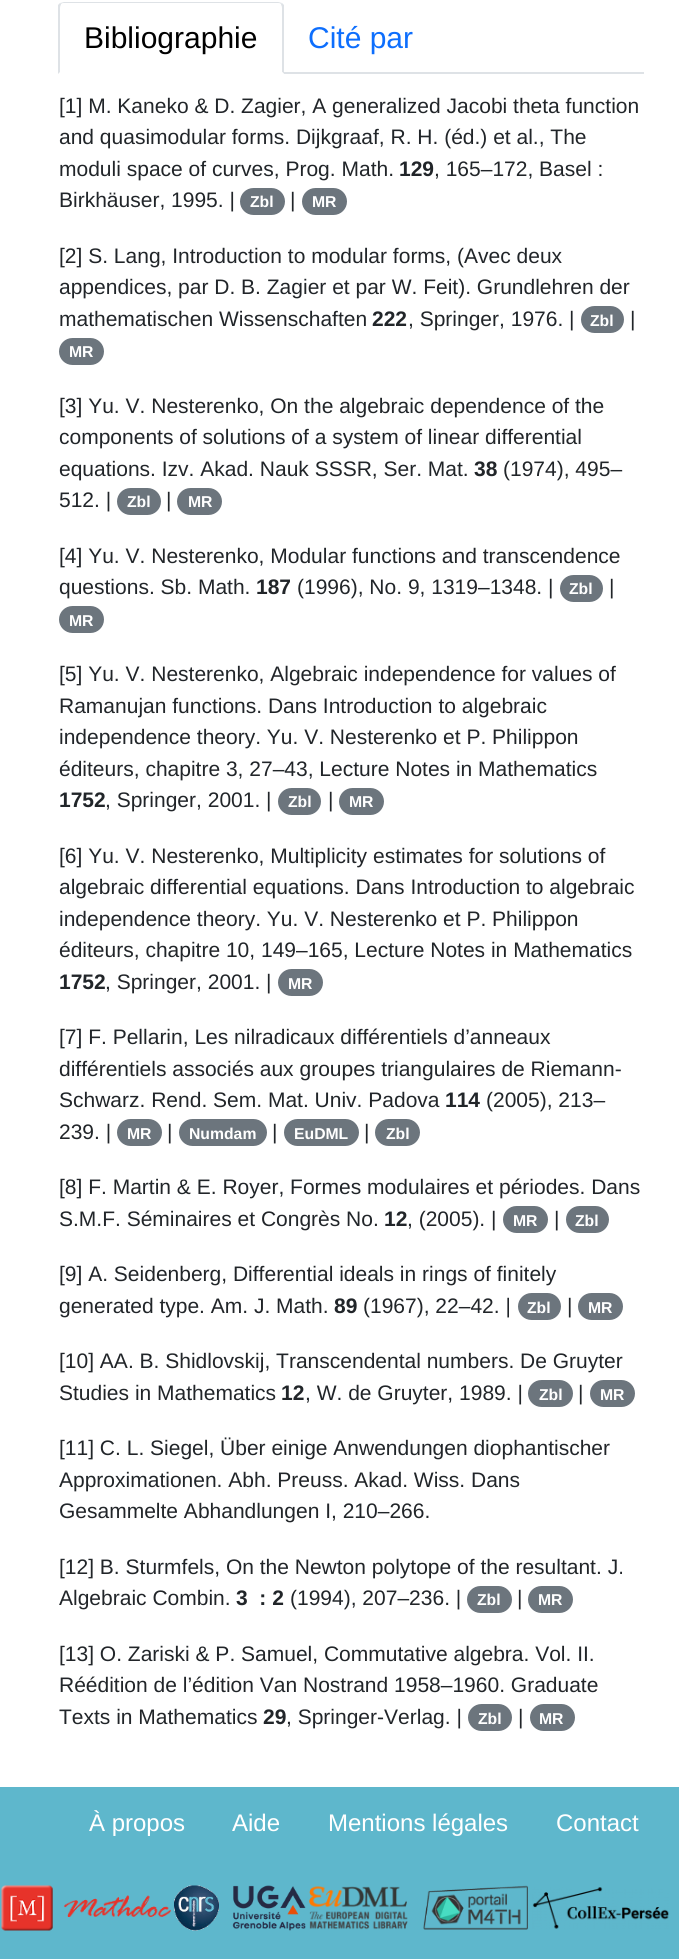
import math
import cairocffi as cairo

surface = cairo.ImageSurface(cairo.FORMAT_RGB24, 679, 1959)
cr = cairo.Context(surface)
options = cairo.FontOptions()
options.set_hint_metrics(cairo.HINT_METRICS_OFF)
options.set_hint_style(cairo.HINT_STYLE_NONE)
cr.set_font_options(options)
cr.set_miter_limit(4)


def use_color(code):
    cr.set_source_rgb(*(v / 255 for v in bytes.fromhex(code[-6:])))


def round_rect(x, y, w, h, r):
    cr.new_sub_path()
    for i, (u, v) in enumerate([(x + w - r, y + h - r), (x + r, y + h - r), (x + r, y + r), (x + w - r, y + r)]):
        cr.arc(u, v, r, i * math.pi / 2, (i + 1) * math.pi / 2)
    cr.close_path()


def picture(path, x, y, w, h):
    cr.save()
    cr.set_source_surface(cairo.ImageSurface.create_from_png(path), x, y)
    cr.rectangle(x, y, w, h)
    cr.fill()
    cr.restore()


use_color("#ffffff")
cr.paint()
use_color("#dee2e6")
cr.rectangle(284, 72, 360, 2)
cr.fill()
cr.new_path()
cr.move_to(64, 2)
cr.line_to(60, 3)
cr.line_to(61, 4)
cr.curve_to(62, 3, 63, 3, 64, 3)
cr.line_to(278, 3)
cr.curve_to(279, 3, 280, 3, 281, 4)
cr.line_to(282, 3)
cr.line_to(278, 2)
cr.close_path()
cr.fill()
cr.new_path()
cr.move_to(282, 3)
cr.line_to(284, 5)
cr.line_to(284, 74)
cr.line_to(282, 72)
cr.line_to(282, 8)
cr.curve_to(282, 6, 281, 5, 281, 4)
cr.close_path()
cr.fill()
use_color("#ffffff")
cr.new_path()
cr.move_to(284, 74)
cr.line_to(282, 72)
cr.line_to(60, 72)
cr.line_to(58, 74)
cr.close_path()
cr.fill()
use_color("#dee2e6")
cr.new_path()
cr.move_to(58, 74)
cr.line_to(60, 72)
cr.line_to(60, 8)
cr.curve_to(60, 6, 61, 5, 61, 4)
cr.line_to(60, 3)
cr.line_to(58, 5)
cr.close_path()
cr.fill()
cr.select_font_face("Liberation Sans")
cr.set_font_size(30)
use_color("#000000")
cr.move_to(84, 48)
cr.show_text("Bibliographie")
use_color("#0d6efd")
cr.move_to(308, 48)
cr.show_text("Cité par")
cr.set_font_size(21)
use_color("#212529")
cr.move_to(59, 113)
cr.show_text("[1] M. Kaneko & D. Zagier, A generalized Jacobi theta function")
cr.move_to(59, 144)
cr.show_text("and quasimodular forms. Dijkgraaf, R. H. (éd.) et al., The")
cr.move_to(59, 176)
cr.show_text("moduli space of curves, Prog. Math.")
cr.select_font_face("Liberation Sans", cairo.FONT_SLANT_NORMAL, cairo.FONT_WEIGHT_BOLD)
cr.move_to(399, 176)
cr.show_text("129")
cr.select_font_face("Liberation Sans")
cr.move_to(434, 176)
cr.show_text(", 165–172, Basel :")
cr.move_to(59, 207)
cr.show_text("Birkhäuser, 1995. |")
use_color("#6c757d")
round_rect(240, 188, 45, 27, 13.5)
cr.fill()
cr.select_font_face("Liberation Sans", cairo.FONT_SLANT_NORMAL, cairo.FONT_WEIGHT_BOLD)
cr.set_font_size(15.75)
use_color("#ffffff")
cr.move_to(250, 207)
cr.show_text("Zbl")
cr.select_font_face("Liberation Sans")
cr.set_font_size(21)
use_color("#212529")
cr.move_to(290, 207)
cr.show_text("|")
use_color("#6c757d")
round_rect(302, 188, 45, 27, 13.5)
cr.fill()
cr.select_font_face("Liberation Sans", cairo.FONT_SLANT_NORMAL, cairo.FONT_WEIGHT_BOLD)
cr.set_font_size(15.75)
use_color("#ffffff")
cr.move_to(312, 207)
cr.show_text("MR")
cr.select_font_face("Liberation Sans")
cr.set_font_size(21)
use_color("#212529")
cr.move_to(59, 263)
cr.show_text("[2] S. Lang, Introduction to modular forms, (Avec deux")
cr.move_to(59, 294)
cr.show_text("appendices, par D. B. Zagier et par W. Feit). Grundlehren der")
cr.move_to(59, 326)
cr.show_text("mathematischen Wissenschaften")
cr.select_font_face("Liberation Sans", cairo.FONT_SLANT_NORMAL, cairo.FONT_WEIGHT_BOLD)
cr.move_to(372, 326)
cr.show_text("222")
cr.select_font_face("Liberation Sans")
cr.move_to(408, 326)
cr.show_text(", Springer, 1976. |")
use_color("#6c757d")
round_rect(581, 306, 43, 27, 13.5)
cr.fill()
cr.select_font_face("Liberation Sans", cairo.FONT_SLANT_NORMAL, cairo.FONT_WEIGHT_BOLD)
cr.set_font_size(15.75)
use_color("#ffffff")
cr.move_to(590, 326)
cr.show_text("Zbl")
cr.select_font_face("Liberation Sans")
cr.set_font_size(21)
use_color("#212529")
cr.move_to(630, 326)
cr.show_text("|")
use_color("#6c757d")
round_rect(59, 338, 45, 27, 13.5)
cr.fill()
cr.select_font_face("Liberation Sans", cairo.FONT_SLANT_NORMAL, cairo.FONT_WEIGHT_BOLD)
cr.set_font_size(15.75)
use_color("#ffffff")
cr.move_to(69, 357)
cr.show_text("MR")
cr.select_font_face("Liberation Sans")
cr.set_font_size(21)
use_color("#212529")
cr.move_to(59, 413)
cr.show_text("[3] Yu. V. Nesterenko, On the algebraic dependence of the")
cr.move_to(59, 444)
cr.show_text("components of solutions of a system of linear differential")
cr.move_to(59, 476)
cr.show_text("equations. Izv. Akad. Nauk SSSR, Ser. Mat.")
cr.select_font_face("Liberation Sans", cairo.FONT_SLANT_NORMAL, cairo.FONT_WEIGHT_BOLD)
cr.move_to(474, 476)
cr.show_text("38")
cr.select_font_face("Liberation Sans")
cr.move_to(503, 476)
cr.show_text("(1974), 495–")
cr.move_to(59, 507)
cr.show_text("512. |")
use_color("#6c757d")
round_rect(117, 488, 44, 27, 13.5)
cr.fill()
cr.select_font_face("Liberation Sans", cairo.FONT_SLANT_NORMAL, cairo.FONT_WEIGHT_BOLD)
cr.set_font_size(15.75)
use_color("#ffffff")
cr.move_to(127, 507)
cr.show_text("Zbl")
cr.select_font_face("Liberation Sans")
cr.set_font_size(21)
use_color("#212529")
cr.move_to(166, 507)
cr.show_text("|")
use_color("#6c757d")
round_rect(177, 488, 45, 27, 13.5)
cr.fill()
cr.select_font_face("Liberation Sans", cairo.FONT_SLANT_NORMAL, cairo.FONT_WEIGHT_BOLD)
cr.set_font_size(15.75)
use_color("#ffffff")
cr.move_to(188, 507)
cr.show_text("MR")
cr.select_font_face("Liberation Sans")
cr.set_font_size(21)
use_color("#212529")
cr.move_to(59, 563)
cr.show_text("[4] Yu. V. Nesterenko, Modular functions and transcendence")
cr.move_to(59, 594)
cr.show_text("questions. Sb. Math.")
cr.select_font_face("Liberation Sans", cairo.FONT_SLANT_NORMAL, cairo.FONT_WEIGHT_BOLD)
cr.move_to(256, 594)
cr.show_text("187")
cr.select_font_face("Liberation Sans")
cr.move_to(297, 594)
cr.show_text("(1996), No. 9, 1319–1348. |")
use_color("#6c757d")
round_rect(560, 575, 43, 27, 13.5)
cr.fill()
cr.select_font_face("Liberation Sans", cairo.FONT_SLANT_NORMAL, cairo.FONT_WEIGHT_BOLD)
cr.set_font_size(15.75)
use_color("#ffffff")
cr.move_to(569, 594)
cr.show_text("Zbl")
cr.select_font_face("Liberation Sans")
cr.set_font_size(21)
use_color("#212529")
cr.move_to(609, 594)
cr.show_text("|")
use_color("#6c757d")
round_rect(59, 606, 45, 27, 13.5)
cr.fill()
cr.select_font_face("Liberation Sans", cairo.FONT_SLANT_NORMAL, cairo.FONT_WEIGHT_BOLD)
cr.set_font_size(15.75)
use_color("#ffffff")
cr.move_to(69, 626)
cr.show_text("MR")
cr.select_font_face("Liberation Sans")
cr.set_font_size(21)
use_color("#212529")
cr.move_to(59, 681)
cr.show_text("[5] Yu. V. Nesterenko, Algebraic independence for values of")
cr.move_to(59, 713)
cr.show_text("Ramanujan functions. Dans Introduction to algebraic")
cr.move_to(59, 744)
cr.show_text("independence theory. Yu. V. Nesterenko et P. Philippon")
cr.move_to(59, 776)
cr.show_text("éditeurs, chapitre 3, 27–43, Lecture Notes in Mathematics")
cr.select_font_face("Liberation Sans", cairo.FONT_SLANT_NORMAL, cairo.FONT_WEIGHT_BOLD)
cr.move_to(59, 807)
cr.show_text("1752")
cr.select_font_face("Liberation Sans")
cr.move_to(105, 807)
cr.show_text(", Springer, 2001. |")
use_color("#6c757d")
round_rect(278, 788, 43, 27, 13.5)
cr.fill()
cr.select_font_face("Liberation Sans", cairo.FONT_SLANT_NORMAL, cairo.FONT_WEIGHT_BOLD)
cr.set_font_size(15.75)
use_color("#ffffff")
cr.move_to(288, 807)
cr.show_text("Zbl")
cr.select_font_face("Liberation Sans")
cr.set_font_size(21)
use_color("#212529")
cr.move_to(328, 807)
cr.show_text("|")
use_color("#6c757d")
round_rect(339, 788, 45, 27, 13.5)
cr.fill()
cr.select_font_face("Liberation Sans", cairo.FONT_SLANT_NORMAL, cairo.FONT_WEIGHT_BOLD)
cr.set_font_size(15.75)
use_color("#ffffff")
cr.move_to(349, 807)
cr.show_text("MR")
cr.select_font_face("Liberation Sans")
cr.set_font_size(21)
use_color("#212529")
cr.move_to(59, 863)
cr.show_text("[6] Yu. V. Nesterenko, Multiplicity estimates for solutions of")
cr.move_to(59, 894)
cr.show_text("algebraic differential equations. Dans Introduction to algebraic")
cr.move_to(59, 926)
cr.show_text("independence theory. Yu. V. Nesterenko et P. Philippon")
cr.move_to(59, 957)
cr.show_text("éditeurs, chapitre 10, 149–165, Lecture Notes in Mathematics")
cr.select_font_face("Liberation Sans", cairo.FONT_SLANT_NORMAL, cairo.FONT_WEIGHT_BOLD)
cr.move_to(59, 989)
cr.show_text("1752")
cr.select_font_face("Liberation Sans")
cr.move_to(105, 989)
cr.show_text(", Springer, 2001. |")
use_color("#6c757d")
round_rect(278, 969, 45, 27, 13.5)
cr.fill()
cr.select_font_face("Liberation Sans", cairo.FONT_SLANT_NORMAL, cairo.FONT_WEIGHT_BOLD)
cr.set_font_size(15.75)
use_color("#ffffff")
cr.move_to(288, 989)
cr.show_text("MR")
cr.select_font_face("Liberation Sans")
cr.set_font_size(21)
use_color("#212529")
cr.move_to(59, 1044)
cr.show_text("[7] F. Pellarin, Les nilradicaux différentiels d’anneaux")
cr.move_to(59, 1076)
cr.show_text("différentiels associés aux groupes triangulaires de Riemann-")
cr.move_to(59, 1107)
cr.show_text("Schwarz. Rend. Sem. Mat. Univ. Padova")
cr.select_font_face("Liberation Sans", cairo.FONT_SLANT_NORMAL, cairo.FONT_WEIGHT_BOLD)
cr.move_to(445, 1107)
cr.show_text("114")
cr.select_font_face("Liberation Sans")
cr.move_to(486, 1107)
cr.show_text("(2005), 213–")
cr.move_to(59, 1139)
cr.show_text("239. |")
use_color("#6c757d")
round_rect(117, 1119, 45, 27, 13.5)
cr.fill()
cr.select_font_face("Liberation Sans", cairo.FONT_SLANT_NORMAL, cairo.FONT_WEIGHT_BOLD)
cr.set_font_size(15.75)
use_color("#ffffff")
cr.move_to(127, 1139)
cr.show_text("MR")
cr.select_font_face("Liberation Sans")
cr.set_font_size(21)
use_color("#212529")
cr.move_to(167, 1139)
cr.show_text("|")
use_color("#6c757d")
round_rect(179, 1119, 88, 27, 13.5)
cr.fill()
cr.select_font_face("Liberation Sans", cairo.FONT_SLANT_NORMAL, cairo.FONT_WEIGHT_BOLD)
cr.set_font_size(15.75)
use_color("#ffffff")
cr.move_to(189, 1139)
cr.show_text("Numdam")
cr.select_font_face("Liberation Sans")
cr.set_font_size(21)
use_color("#212529")
cr.move_to(272, 1139)
cr.show_text("|")
use_color("#6c757d")
round_rect(284, 1119, 75, 27, 13.5)
cr.fill()
cr.select_font_face("Liberation Sans", cairo.FONT_SLANT_NORMAL, cairo.FONT_WEIGHT_BOLD)
cr.set_font_size(15.75)
use_color("#ffffff")
cr.move_to(294, 1139)
cr.show_text("EuDML")
cr.select_font_face("Liberation Sans")
cr.set_font_size(21)
use_color("#212529")
cr.move_to(364, 1139)
cr.show_text("|")
use_color("#6c757d")
round_rect(375, 1119, 45, 27, 13.5)
cr.fill()
cr.select_font_face("Liberation Sans", cairo.FONT_SLANT_NORMAL, cairo.FONT_WEIGHT_BOLD)
cr.set_font_size(15.75)
use_color("#ffffff")
cr.move_to(386, 1139)
cr.show_text("Zbl")
cr.select_font_face("Liberation Sans")
cr.set_font_size(21)
use_color("#212529")
cr.move_to(59, 1194)
cr.show_text("[8] F. Martin & E. Royer, Formes modulaires et périodes. Dans")
cr.move_to(59, 1226)
cr.show_text("S.M.F. Séminaires et Congrès No.")
cr.select_font_face("Liberation Sans", cairo.FONT_SLANT_NORMAL, cairo.FONT_WEIGHT_BOLD)
cr.move_to(384, 1226)
cr.show_text("12")
cr.select_font_face("Liberation Sans")
cr.move_to(407, 1226)
cr.show_text(", (2005). |")
use_color("#6c757d")
round_rect(503, 1206, 45, 27, 13.5)
cr.fill()
cr.select_font_face("Liberation Sans", cairo.FONT_SLANT_NORMAL, cairo.FONT_WEIGHT_BOLD)
cr.set_font_size(15.75)
use_color("#ffffff")
cr.move_to(513, 1226)
cr.show_text("MR")
cr.select_font_face("Liberation Sans")
cr.set_font_size(21)
use_color("#212529")
cr.move_to(554, 1226)
cr.show_text("|")
use_color("#6c757d")
round_rect(566, 1206, 43, 27, 13.5)
cr.fill()
cr.select_font_face("Liberation Sans", cairo.FONT_SLANT_NORMAL, cairo.FONT_WEIGHT_BOLD)
cr.set_font_size(15.75)
use_color("#ffffff")
cr.move_to(575, 1226)
cr.show_text("Zbl")
cr.select_font_face("Liberation Sans")
cr.set_font_size(21)
use_color("#212529")
cr.move_to(59, 1281)
cr.show_text("[9] A. Seidenberg, Differential ideals in rings of finitely")
cr.move_to(59, 1313)
cr.show_text("generated type. Am. J. Math.")
cr.select_font_face("Liberation Sans", cairo.FONT_SLANT_NORMAL, cairo.FONT_WEIGHT_BOLD)
cr.move_to(334, 1313)
cr.show_text("89")
cr.select_font_face("Liberation Sans")
cr.move_to(363, 1313)
cr.show_text("(1967), 22–42. |")
use_color("#6c757d")
round_rect(518, 1293, 43, 27, 13.5)
cr.fill()
cr.select_font_face("Liberation Sans", cairo.FONT_SLANT_NORMAL, cairo.FONT_WEIGHT_BOLD)
cr.set_font_size(15.75)
use_color("#ffffff")
cr.move_to(527, 1313)
cr.show_text("Zbl")
cr.select_font_face("Liberation Sans")
cr.set_font_size(21)
use_color("#212529")
cr.move_to(567, 1313)
cr.show_text("|")
use_color("#6c757d")
round_rect(578, 1293, 45, 27, 13.5)
cr.fill()
cr.select_font_face("Liberation Sans", cairo.FONT_SLANT_NORMAL, cairo.FONT_WEIGHT_BOLD)
cr.set_font_size(15.75)
use_color("#ffffff")
cr.move_to(588, 1313)
cr.show_text("MR")
cr.select_font_face("Liberation Sans")
cr.set_font_size(21)
use_color("#212529")
cr.move_to(59, 1368)
cr.show_text("[10] AA. B. Shidlovskij, Transcendental numbers. De Gruyter")
cr.move_to(59, 1400)
cr.show_text("Studies in Mathematics")
cr.select_font_face("Liberation Sans", cairo.FONT_SLANT_NORMAL, cairo.FONT_WEIGHT_BOLD)
cr.move_to(281, 1400)
cr.show_text("12")
cr.select_font_face("Liberation Sans")
cr.move_to(305, 1400)
cr.show_text(", W. de Gruyter, 1989. |")
use_color("#6c757d")
round_rect(528, 1380, 45, 27, 13.5)
cr.fill()
cr.select_font_face("Liberation Sans", cairo.FONT_SLANT_NORMAL, cairo.FONT_WEIGHT_BOLD)
cr.set_font_size(15.75)
use_color("#ffffff")
cr.move_to(539, 1400)
cr.show_text("Zbl")
cr.select_font_face("Liberation Sans")
cr.set_font_size(21)
use_color("#212529")
cr.move_to(578, 1400)
cr.show_text("|")
use_color("#6c757d")
round_rect(590, 1380, 45, 27, 13.5)
cr.fill()
cr.select_font_face("Liberation Sans", cairo.FONT_SLANT_NORMAL, cairo.FONT_WEIGHT_BOLD)
cr.set_font_size(15.75)
use_color("#ffffff")
cr.move_to(600, 1400)
cr.show_text("MR")
cr.select_font_face("Liberation Sans")
cr.set_font_size(21)
use_color("#212529")
cr.move_to(59, 1455)
cr.show_text("[11] C. L. Siegel, Über einige Anwendungen diophantischer")
cr.move_to(59, 1487)
cr.show_text("Approximationen. Abh. Preuss. Akad. Wiss. Dans")
cr.move_to(59, 1518)
cr.show_text("Gesammelte Abhandlungen I, 210–266.")
cr.move_to(59, 1574)
cr.show_text("[12] B. Sturmfels, On the Newton polytope of the resultant. J.")
cr.move_to(59, 1605)
cr.show_text("Algebraic Combin.")
cr.select_font_face("Liberation Sans", cairo.FONT_SLANT_NORMAL, cairo.FONT_WEIGHT_BOLD)
cr.move_to(236, 1605)
cr.show_text("3  : 2")
cr.select_font_face("Liberation Sans")
cr.move_to(290, 1605)
cr.show_text("(1994), 207–236. |")
use_color("#6c757d")
round_rect(467, 1586, 45, 27, 13.5)
cr.fill()
cr.select_font_face("Liberation Sans", cairo.FONT_SLANT_NORMAL, cairo.FONT_WEIGHT_BOLD)
cr.set_font_size(15.75)
use_color("#ffffff")
cr.move_to(477, 1605)
cr.show_text("Zbl")
cr.select_font_face("Liberation Sans")
cr.set_font_size(21)
use_color("#212529")
cr.move_to(517, 1605)
cr.show_text("|")
use_color("#6c757d")
round_rect(528, 1586, 45, 27, 13.5)
cr.fill()
cr.select_font_face("Liberation Sans", cairo.FONT_SLANT_NORMAL, cairo.FONT_WEIGHT_BOLD)
cr.set_font_size(15.75)
use_color("#ffffff")
cr.move_to(538, 1605)
cr.show_text("MR")
cr.select_font_face("Liberation Sans")
cr.set_font_size(21)
use_color("#212529")
cr.move_to(59, 1661)
cr.show_text("[13] O. Zariski & P. Samuel, Commutative algebra. Vol. II.")
cr.move_to(59, 1692)
cr.show_text("Réédition de l’édition Van Nostrand 1958–1960. Graduate")
cr.move_to(59, 1724)
cr.show_text("Texts in Mathematics")
cr.select_font_face("Liberation Sans", cairo.FONT_SLANT_NORMAL, cairo.FONT_WEIGHT_BOLD)
cr.move_to(263, 1724)
cr.show_text("29")
cr.select_font_face("Liberation Sans")
cr.move_to(286, 1724)
cr.show_text(", Springer-Verlag. |")
use_color("#6c757d")
round_rect(468, 1704, 44, 27, 13.5)
cr.fill()
cr.select_font_face("Liberation Sans", cairo.FONT_SLANT_NORMAL, cairo.FONT_WEIGHT_BOLD)
cr.set_font_size(15.75)
use_color("#ffffff")
cr.move_to(478, 1724)
cr.show_text("Zbl")
cr.select_font_face("Liberation Sans")
cr.set_font_size(21)
use_color("#212529")
cr.move_to(518, 1724)
cr.show_text("|")
use_color("#6c757d")
round_rect(530, 1704, 45, 27, 13.5)
cr.fill()
cr.select_font_face("Liberation Sans", cairo.FONT_SLANT_NORMAL, cairo.FONT_WEIGHT_BOLD)
cr.set_font_size(15.75)
use_color("#ffffff")
cr.move_to(539, 1724)
cr.show_text("MR")
use_color("#5eb7cc")
cr.rectangle(0, 1787, 679, 172)
cr.fill()
cr.select_font_face("Liberation Sans")
cr.set_font_size(24)
use_color("#ffffff")
cr.move_to(89, 1831)
cr.show_text("À propos")
cr.move_to(232, 1831)
cr.show_text("Aide")
cr.move_to(328, 1831)
cr.show_text("Mentions légales")
cr.move_to(556, 1831)
cr.show_text("Contact")
picture("img1.png", 1, 1885, 170, 46)
picture("img2.png", 174, 1885, 45, 46)
picture("img3.png", 232, 1885, 74, 46)
picture("img4.png", 309, 1886, 99, 44)
picture("img5.png", 423, 1885, 105, 45)
picture("img6.png", 532, 1887, 137, 42)
surface.write_to_png("result.png")
